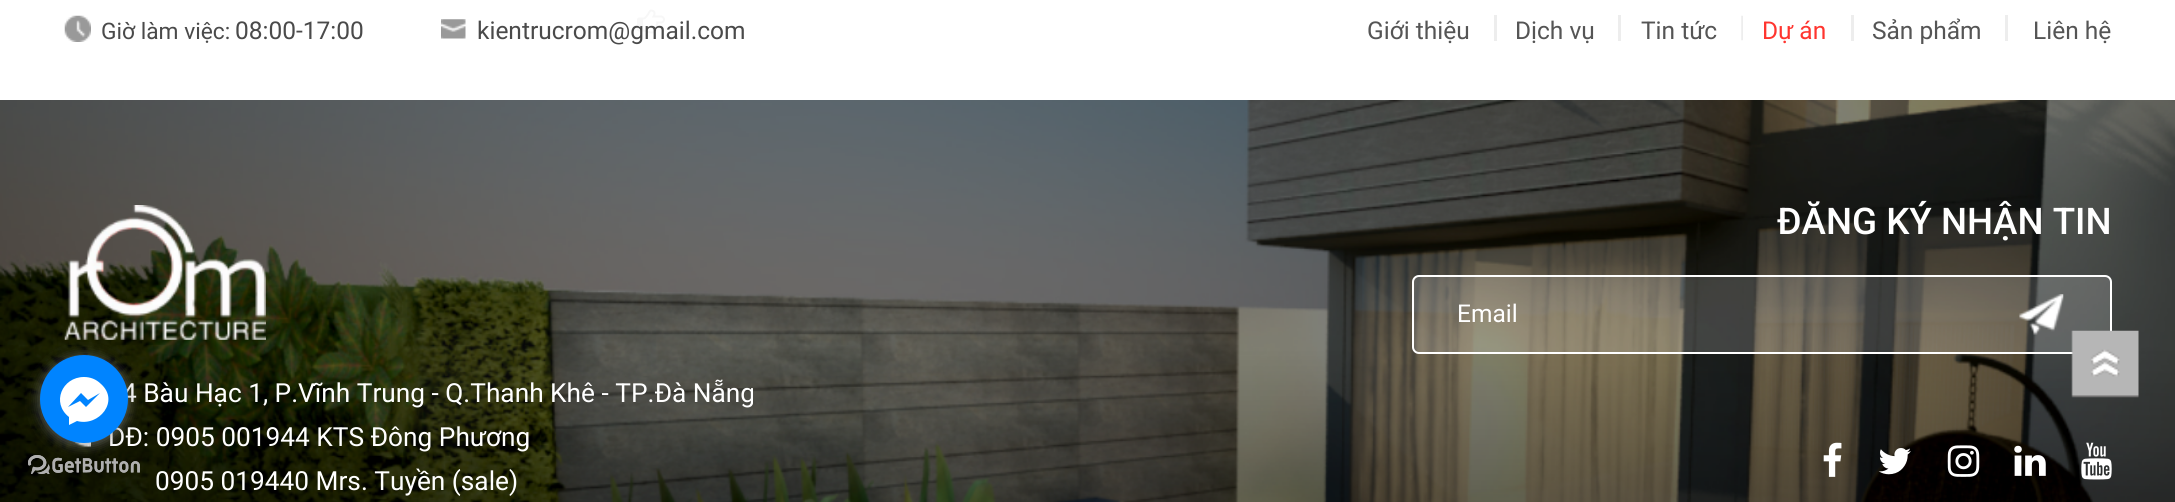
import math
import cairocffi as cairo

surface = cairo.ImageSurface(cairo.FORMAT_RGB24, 2175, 502)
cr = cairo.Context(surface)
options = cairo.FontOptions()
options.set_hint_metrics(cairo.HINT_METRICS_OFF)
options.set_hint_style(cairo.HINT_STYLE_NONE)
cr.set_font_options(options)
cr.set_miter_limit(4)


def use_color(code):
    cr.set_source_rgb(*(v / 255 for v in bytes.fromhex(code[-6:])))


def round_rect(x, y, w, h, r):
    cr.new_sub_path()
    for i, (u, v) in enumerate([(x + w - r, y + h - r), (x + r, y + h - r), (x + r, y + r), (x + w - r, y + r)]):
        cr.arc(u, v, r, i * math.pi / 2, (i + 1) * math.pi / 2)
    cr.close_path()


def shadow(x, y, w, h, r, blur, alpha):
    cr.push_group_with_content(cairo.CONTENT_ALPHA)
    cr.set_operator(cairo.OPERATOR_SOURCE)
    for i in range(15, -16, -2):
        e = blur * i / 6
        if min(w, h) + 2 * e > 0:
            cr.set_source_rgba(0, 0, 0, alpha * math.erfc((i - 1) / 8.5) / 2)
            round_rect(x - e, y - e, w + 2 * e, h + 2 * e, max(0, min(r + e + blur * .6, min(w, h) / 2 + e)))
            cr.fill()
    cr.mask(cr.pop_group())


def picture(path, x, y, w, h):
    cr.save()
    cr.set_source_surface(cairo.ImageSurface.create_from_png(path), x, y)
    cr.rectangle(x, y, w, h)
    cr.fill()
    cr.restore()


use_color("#ffffff")
cr.paint()
picture("img1.png", 637, 9, 28, 25)
picture("img2.png", 64, 15, 27, 27)
cr.select_font_face("Roboto")
cr.set_font_size(22.75)
use_color("#4a4a4a")
cr.move_to(101, 39)
cr.show_text("Giờ làm việc:")
cr.set_font_size(24.5)
cr.move_to(235, 39)
cr.show_text("08:00-17:00")
picture("img3.png", 441, 19, 25, 20)
cr.move_to(477, 39)
cr.show_text("kientrucrom@gmail.com")
use_color("#555555")
cr.move_to(1367, 39)
cr.show_text("Giới thiệu")
use_color("#ededed")
cr.rectangle(1494, 15, 3, 26)
cr.fill()
use_color("#555555")
cr.move_to(1515, 39)
cr.show_text("Dịch vụ")
use_color("#ededed")
cr.rectangle(1618, 15, 3, 26)
cr.fill()
use_color("#555555")
cr.move_to(1641, 39)
cr.show_text("Tin tức")
picture("img4.png", 1741, 15, 2, 26)
use_color("#ff352f")
cr.move_to(1762, 39)
cr.show_text("Dự án")
use_color("#ededed")
cr.rectangle(1851, 15, 3, 26)
cr.fill()
use_color("#555555")
cr.move_to(1872, 39)
cr.show_text("Sản phẩm")
use_color("#ededed")
cr.rectangle(2005, 15, 3, 26)
cr.fill()
use_color("#555555")
cr.move_to(2033, 39)
cr.show_text("Liên hệ")
picture("img5.png", 0, 100, 2175, 402)
cr.select_font_face("Roboto Medium")
cr.set_font_size(36.75)
use_color("#ffffff")
cr.move_to(1777, 234)
cr.show_text("ĐĂNG KÝ NHẬN TIN")
cr.set_source_rgba(1, 1, 1, 0.17)
round_rect(1413, 276, 698, 77, 6)
cr.fill_preserve()
use_color("#ffffff")
cr.stroke()
cr.select_font_face("Roboto")
cr.set_font_size(24.5)
cr.move_to(1457, 322)
cr.show_text("Email")
picture("img6.png", 2019, 294, 45, 41)
picture("img7.png", 1823, 442, 19, 35)
picture("img8.png", 1878, 448, 33, 27)
picture("img9.png", 1947, 445, 33, 32)
picture("img10.png", 2014, 445, 32, 31)
picture("img11.png", 2081, 442, 31, 38)
picture("img12.png", 64, 205, 202, 135)
cr.set_font_size(26.25)
cr.move_to(122, 402)
cr.show_text("4 Bàu Hạc 1, P.Vĩnh Trung - Q.Thanh Khê - TP.Đà Nẵng")
picture("img13.png", 72, 441, 19, 6)
cr.move_to(108, 446)
cr.show_text("DĐ: 0905 001944 KTS Đông Phương")
cr.move_to(155, 490)
cr.show_text("0905 019440 Mrs. Tuyền (sale)")
picture("img14.png", 28, 455, 112, 19)
use_color("#888888")
shadow(40, 357, 88, 88, 44, 6, 0.4)
picture("img15.png", 2071, 330, 68, 68)
picture("img16.png", 28, 455, 112, 19)
shadow(40, 357, 88, 88, 44, 6, 0.4)
use_color("#0084ff")
cr.arc(84, 399, 44, 0, 2 * math.pi)
cr.fill()
use_color("#ffffff")
cr.new_path()
cr.move_to(84, 377)
cr.curve_to(62, 377, 51, 403, 69, 417)
cr.line_to(69, 425)
cr.line_to(77, 421)
cr.curve_to(99, 427, 120, 401, 101, 384)
cr.curve_to(96, 379, 90, 377, 84, 377)
cr.close_path()
cr.move_to(86, 407)
cr.line_to(80, 401)
cr.line_to(68, 407)
cr.line_to(81, 393)
cr.line_to(88, 400)
cr.line_to(100, 393)
cr.close_path()
cr.fill()
surface.write_to_png("result.png")
